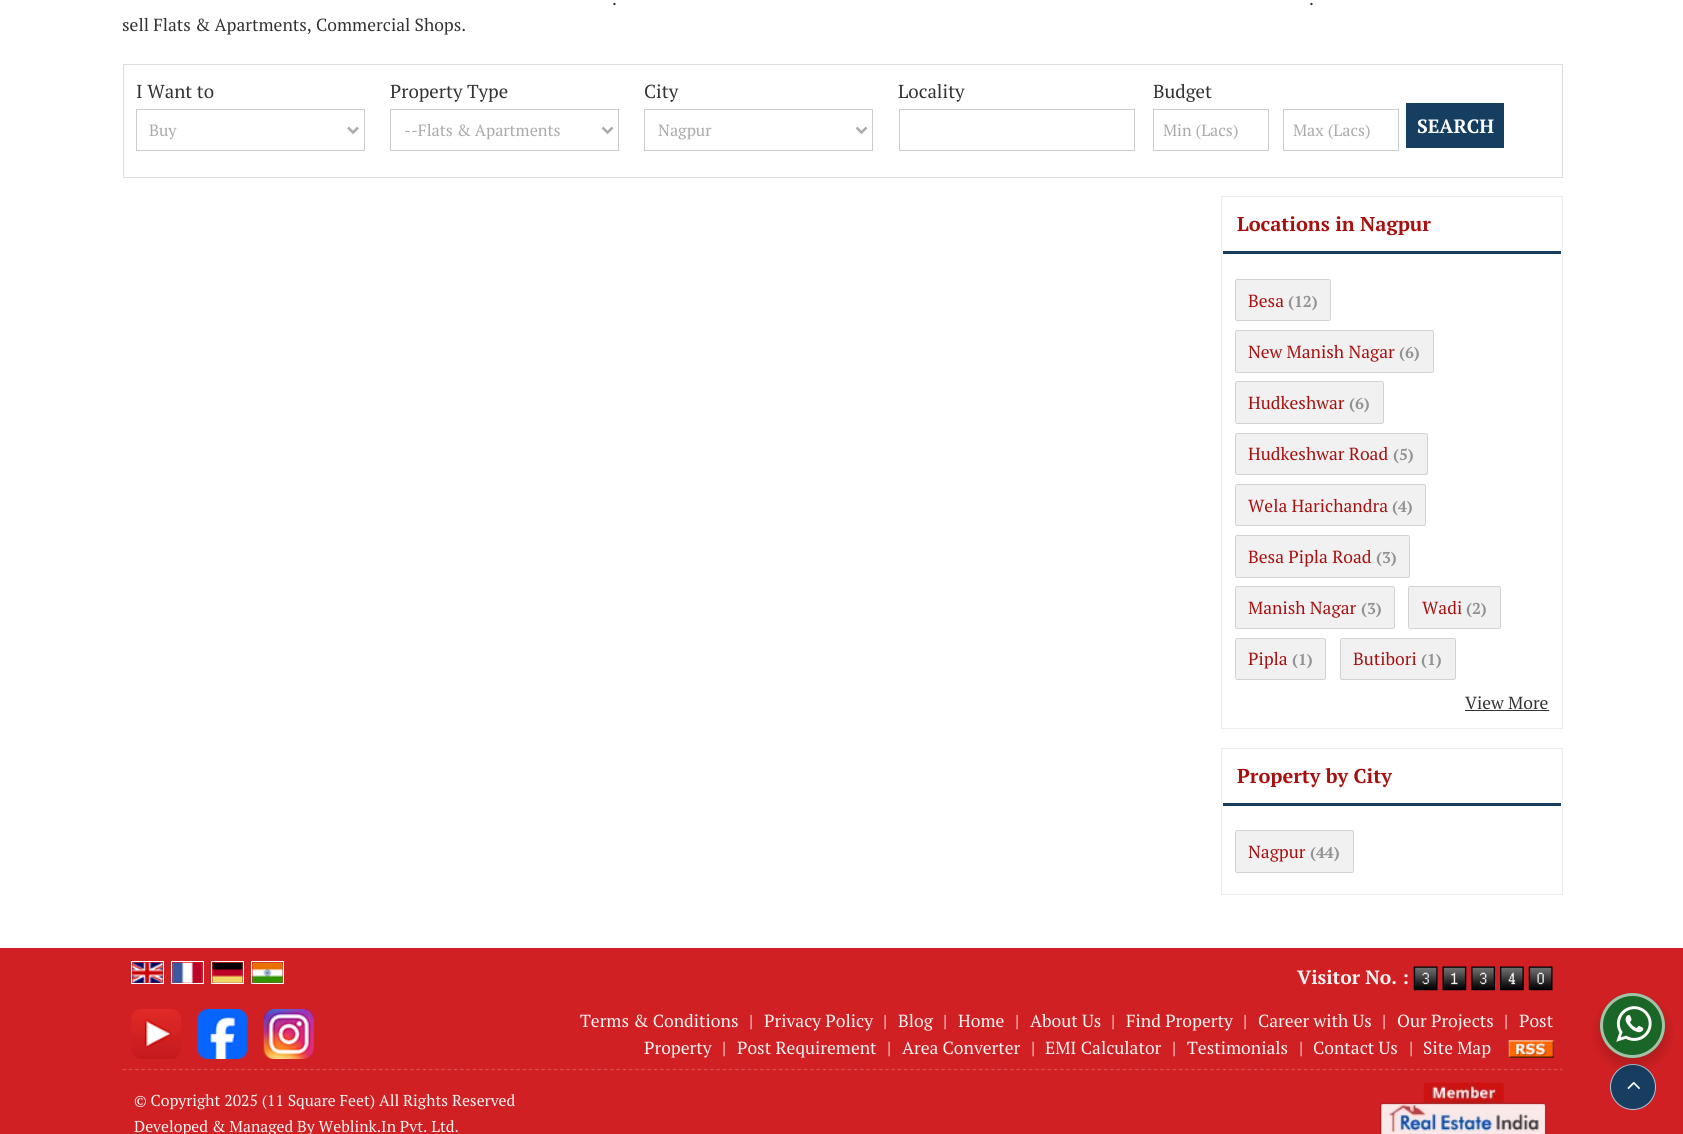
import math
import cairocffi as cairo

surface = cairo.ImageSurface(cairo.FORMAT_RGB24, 1683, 1134)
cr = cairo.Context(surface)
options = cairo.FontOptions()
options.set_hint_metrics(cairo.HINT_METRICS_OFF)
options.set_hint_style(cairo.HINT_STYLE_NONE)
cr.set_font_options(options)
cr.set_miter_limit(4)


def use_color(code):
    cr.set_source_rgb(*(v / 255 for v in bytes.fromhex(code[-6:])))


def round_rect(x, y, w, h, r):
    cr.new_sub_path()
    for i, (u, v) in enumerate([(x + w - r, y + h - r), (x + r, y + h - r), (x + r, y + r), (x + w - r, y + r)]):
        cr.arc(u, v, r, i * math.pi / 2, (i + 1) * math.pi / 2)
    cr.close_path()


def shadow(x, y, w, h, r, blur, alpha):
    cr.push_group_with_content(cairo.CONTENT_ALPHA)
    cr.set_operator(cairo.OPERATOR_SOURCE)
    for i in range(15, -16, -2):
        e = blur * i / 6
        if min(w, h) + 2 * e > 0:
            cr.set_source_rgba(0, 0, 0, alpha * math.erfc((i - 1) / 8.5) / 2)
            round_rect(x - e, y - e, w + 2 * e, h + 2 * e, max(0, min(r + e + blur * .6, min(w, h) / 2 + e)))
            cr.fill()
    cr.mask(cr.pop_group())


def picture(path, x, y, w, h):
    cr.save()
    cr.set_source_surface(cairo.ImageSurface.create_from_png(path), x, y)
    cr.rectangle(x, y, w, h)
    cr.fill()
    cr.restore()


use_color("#ffffff")
cr.paint()
cr.select_font_face("PT Serif")
cr.set_font_size(17.5)
use_color("#333333")
cr.move_to(612, 5)
cr.show_text(".")
cr.move_to(1309, 5)
cr.show_text(".")
cr.move_to(122, 31)
cr.show_text("sell Flats & Apartments, Commercial Shops.")
cr.rectangle(123.5, 64.5, 1439, 113)
use_color("#dedede")
cr.set_line_width(1)
cr.stroke()
cr.set_font_size(18.75)
use_color("#333333")
cr.move_to(136, 98)
cr.show_text("I Want to")
cr.rectangle(136.5, 109.5, 228, 41)
use_color("#cccccc")
cr.stroke()
cr.new_path()
cr.move_to(348, 127.5)
cr.line_to(353, 132.5)
cr.line_to(358, 127.5)
use_color("#aaaaaa")
cr.set_line_width(2.5)
cr.stroke()
cr.set_font_size(16.25)
cr.move_to(149, 136)
cr.show_text("Buy")
cr.set_font_size(18.75)
use_color("#333333")
cr.move_to(390, 98)
cr.show_text("Property Type")
cr.rectangle(390.5, 109.5, 228, 41)
use_color("#cccccc")
cr.set_line_width(1)
cr.stroke()
cr.new_path()
cr.move_to(602.5, 127.5)
cr.line_to(607.5, 132.5)
cr.line_to(612.5, 127.5)
use_color("#aaaaaa")
cr.set_line_width(2.5)
cr.stroke()
cr.set_font_size(16.25)
cr.move_to(404, 136)
cr.show_text("--Flats & Apartments")
cr.set_font_size(18.75)
use_color("#333333")
cr.move_to(644, 98)
cr.show_text("City")
cr.rectangle(644.5, 109.5, 228, 41)
use_color("#cccccc")
cr.set_line_width(1)
cr.stroke()
cr.new_path()
cr.move_to(856.5, 127.5)
cr.line_to(861.5, 132.5)
cr.line_to(866.5, 127.5)
use_color("#aaaaaa")
cr.set_line_width(2.5)
cr.stroke()
cr.set_font_size(16.25)
cr.move_to(658, 136)
cr.show_text("Nagpur")
cr.set_font_size(18.75)
use_color("#333333")
cr.move_to(898, 98)
cr.show_text("Locality")
cr.rectangle(899.5, 109.5, 235, 41)
use_color("#cccccc")
cr.set_line_width(1)
cr.stroke()
use_color("#333333")
cr.move_to(1153, 98)
cr.show_text("Budget")
cr.rectangle(1153.5, 109.5, 115, 41)
use_color("#cccccc")
cr.stroke()
cr.set_font_size(16.25)
use_color("#aaaaaa")
cr.move_to(1163, 136)
cr.show_text("Min (Lacs)")
cr.rectangle(1283.5, 109.5, 115, 41)
use_color("#cccccc")
cr.stroke()
use_color("#aaaaaa")
cr.move_to(1293, 136)
cr.show_text("Max (Lacs)")
use_color("#163e61")
cr.rectangle(1406, 103, 98, 45)
cr.fill()
cr.select_font_face("PT Serif", cairo.FONT_SLANT_NORMAL, cairo.FONT_WEIGHT_BOLD)
cr.set_font_size(19.25)
use_color("#ffffff")
cr.move_to(1417, 133)
cr.show_text("SEARCH")
cr.rectangle(1221.5, 196.5, 341, 532)
use_color("#ededed")
cr.stroke()
use_color("#163e61")
cr.rectangle(1223, 251, 338, 3)
cr.fill()
cr.set_font_size(20)
use_color("#a81010")
cr.move_to(1237, 231)
cr.show_text("Locations in Nagpur")
use_color("#f1f1f1")
round_rect(1235, 279, 96, 42, 2.5)
cr.fill()
round_rect(1235.5, 279.5, 95, 41, 2)
cr.set_source_rgba(0, 0, 0, 0.13)
cr.stroke()
cr.select_font_face("PT Serif")
cr.set_font_size(17.5)
use_color("#a81010")
cr.move_to(1248, 307)
cr.show_text("Besa")
cr.select_font_face("PT Serif", cairo.FONT_SLANT_NORMAL, cairo.FONT_WEIGHT_BOLD)
cr.set_font_size(15.75)
use_color("#929292")
cr.move_to(1288, 307)
cr.show_text("(12)")
use_color("#f1f1f1")
round_rect(1235, 330, 199, 43, 2.5)
cr.fill()
round_rect(1235.5, 330.5, 198, 42, 2)
cr.set_source_rgba(0, 0, 0, 0.13)
cr.stroke()
cr.select_font_face("PT Serif")
cr.set_font_size(17.5)
use_color("#a81010")
cr.move_to(1248, 358)
cr.show_text("New Manish Nagar")
cr.select_font_face("PT Serif", cairo.FONT_SLANT_NORMAL, cairo.FONT_WEIGHT_BOLD)
cr.set_font_size(15.75)
use_color("#929292")
cr.move_to(1399, 358)
cr.show_text("(6)")
use_color("#f1f1f1")
round_rect(1235, 381, 149, 43, 2.5)
cr.fill()
round_rect(1235.5, 381.5, 148, 42, 2)
cr.set_source_rgba(0, 0, 0, 0.13)
cr.stroke()
cr.select_font_face("PT Serif")
cr.set_font_size(17.5)
use_color("#a81010")
cr.move_to(1248, 409)
cr.show_text("Hudkeshwar")
cr.select_font_face("PT Serif", cairo.FONT_SLANT_NORMAL, cairo.FONT_WEIGHT_BOLD)
cr.set_font_size(15.75)
use_color("#929292")
cr.move_to(1349, 409)
cr.show_text("(6)")
use_color("#f1f1f1")
round_rect(1235, 433, 193, 42, 2.5)
cr.fill()
round_rect(1235.5, 433.5, 192, 41, 2)
cr.set_source_rgba(0, 0, 0, 0.13)
cr.stroke()
cr.select_font_face("PT Serif")
cr.set_font_size(17.5)
use_color("#a81010")
cr.move_to(1248, 460)
cr.show_text("Hudkeshwar Road")
cr.select_font_face("PT Serif", cairo.FONT_SLANT_NORMAL, cairo.FONT_WEIGHT_BOLD)
cr.set_font_size(15.75)
use_color("#929292")
cr.move_to(1393, 460)
cr.show_text("(5)")
use_color("#f1f1f1")
round_rect(1235, 484, 191, 42, 2.5)
cr.fill()
round_rect(1235.5, 484.5, 190, 41, 2)
cr.set_source_rgba(0, 0, 0, 0.13)
cr.stroke()
cr.select_font_face("PT Serif")
cr.set_font_size(17.5)
use_color("#a81010")
cr.move_to(1248, 512)
cr.show_text("Wela Harichandra")
cr.select_font_face("PT Serif", cairo.FONT_SLANT_NORMAL, cairo.FONT_WEIGHT_BOLD)
cr.set_font_size(15.75)
use_color("#929292")
cr.move_to(1392, 512)
cr.show_text("(4)")
use_color("#f1f1f1")
round_rect(1235, 535, 175, 43, 2.5)
cr.fill()
round_rect(1235.5, 535.5, 174, 42, 2)
cr.set_source_rgba(0, 0, 0, 0.13)
cr.stroke()
cr.select_font_face("PT Serif")
cr.set_font_size(17.5)
use_color("#a81010")
cr.move_to(1248, 563)
cr.show_text("Besa Pipla Road")
cr.select_font_face("PT Serif", cairo.FONT_SLANT_NORMAL, cairo.FONT_WEIGHT_BOLD)
cr.set_font_size(15.75)
use_color("#929292")
cr.move_to(1376, 563)
cr.show_text("(3)")
use_color("#f1f1f1")
round_rect(1235, 586, 160, 43, 2.5)
cr.fill()
round_rect(1235.5, 586.5, 159, 42, 2)
cr.set_source_rgba(0, 0, 0, 0.13)
cr.stroke()
cr.select_font_face("PT Serif")
cr.set_font_size(17.5)
use_color("#a81010")
cr.move_to(1248, 614)
cr.show_text("Manish Nagar")
cr.select_font_face("PT Serif", cairo.FONT_SLANT_NORMAL, cairo.FONT_WEIGHT_BOLD)
cr.set_font_size(15.75)
use_color("#929292")
cr.move_to(1361, 614)
cr.show_text("(3)")
use_color("#f1f1f1")
round_rect(1408, 586, 93, 43, 2.5)
cr.fill()
round_rect(1408.5, 586.5, 92, 42, 2)
cr.set_source_rgba(0, 0, 0, 0.13)
cr.stroke()
cr.select_font_face("PT Serif")
cr.set_font_size(17.5)
use_color("#a81010")
cr.move_to(1422, 614)
cr.show_text("Wadi")
cr.select_font_face("PT Serif", cairo.FONT_SLANT_NORMAL, cairo.FONT_WEIGHT_BOLD)
cr.set_font_size(15.75)
use_color("#929292")
cr.move_to(1466, 614)
cr.show_text("(2)")
use_color("#f1f1f1")
round_rect(1235, 638, 91, 42, 2.5)
cr.fill()
round_rect(1235.5, 638.5, 90, 41, 2)
cr.set_source_rgba(0, 0, 0, 0.13)
cr.stroke()
cr.select_font_face("PT Serif")
cr.set_font_size(17.5)
use_color("#a81010")
cr.move_to(1248, 665)
cr.show_text("Pipla")
cr.select_font_face("PT Serif", cairo.FONT_SLANT_NORMAL, cairo.FONT_WEIGHT_BOLD)
cr.set_font_size(15.75)
use_color("#929292")
cr.move_to(1292, 665)
cr.show_text("(1)")
use_color("#f1f1f1")
round_rect(1340, 638, 116, 42, 2.5)
cr.fill()
round_rect(1340.5, 638.5, 115, 41, 2)
cr.set_source_rgba(0, 0, 0, 0.13)
cr.stroke()
cr.select_font_face("PT Serif")
cr.set_font_size(17.5)
use_color("#a81010")
cr.move_to(1353, 665)
cr.show_text("Butibori")
cr.select_font_face("PT Serif", cairo.FONT_SLANT_NORMAL, cairo.FONT_WEIGHT_BOLD)
cr.set_font_size(15.75)
use_color("#929292")
cr.move_to(1421, 665)
cr.show_text("(1)")
cr.select_font_face("PT Serif")
cr.set_font_size(17.5)
use_color("#333333")
cr.move_to(1465, 709)
cr.show_text("View More")
cr.rectangle(1465, 710, 84, 1)
cr.fill()
cr.rectangle(1221.5, 748.5, 341, 146)
use_color("#ededed")
cr.stroke()
use_color("#163e61")
cr.rectangle(1223, 803, 338, 3)
cr.fill()
cr.select_font_face("PT Serif", cairo.FONT_SLANT_NORMAL, cairo.FONT_WEIGHT_BOLD)
cr.set_font_size(20)
use_color("#a81010")
cr.move_to(1237, 783)
cr.show_text("Property by City")
use_color("#f1f1f1")
round_rect(1235, 830, 119, 43, 2.5)
cr.fill()
round_rect(1235.5, 830.5, 118, 42, 2)
cr.set_source_rgba(0, 0, 0, 0.13)
cr.stroke()
cr.select_font_face("PT Serif")
cr.set_font_size(17.5)
use_color("#a81010")
cr.move_to(1248, 858)
cr.show_text("Nagpur")
cr.select_font_face("PT Serif", cairo.FONT_SLANT_NORMAL, cairo.FONT_WEIGHT_BOLD)
cr.set_font_size(15.75)
use_color("#929292")
cr.move_to(1310, 858)
cr.show_text("(44)")
use_color("#d12023")
cr.rectangle(0, 948, 1683, 186)
cr.fill()
cr.rectangle(131.5, 961.5, 32, 22)
use_color("#ffffff")
cr.stroke()
cr.rectangle(171.5, 961.5, 32, 22)
cr.stroke()
cr.rectangle(211.5, 961.5, 32, 22)
cr.stroke()
cr.rectangle(251.5, 961.5, 32, 22)
cr.stroke()
picture("img1.png", 132, 962, 31, 21)
picture("img2.png", 172, 962, 31, 21)
picture("img3.png", 212, 962, 31, 21)
picture("img4.png", 252, 962, 31, 21)
cr.set_font_size(19.25)
use_color("#fdf4f4")
cr.move_to(1297, 984)
cr.show_text("Visitor No. :")
picture("img5.png", 1413, 966, 25, 25)
picture("img6.png", 1442, 966, 25, 25)
picture("img7.png", 1471, 966, 24, 25)
picture("img8.png", 1500, 966, 24, 25)
picture("img9.png", 1528, 966, 25, 25)
picture("img10.png", 131, 1009, 50, 50)
picture("img11.png", 197, 1009, 51, 50)
picture("img12.png", 263, 1009, 51, 50)
cr.select_font_face("PT Serif")
cr.set_font_size(17.5)
cr.move_to(580, 1027)
cr.show_text("Terms & Conditions")
cr.move_to(749, 1027)
cr.show_text("|")
cr.move_to(764, 1027)
cr.show_text("Privacy Policy")
cr.move_to(883, 1027)
cr.show_text("|")
cr.move_to(898, 1027)
cr.show_text("Blog")
cr.move_to(943, 1027)
cr.show_text("|")
cr.move_to(958, 1027)
cr.show_text("Home")
cr.move_to(1015, 1027)
cr.show_text("|")
cr.move_to(1030, 1027)
cr.show_text("About Us")
cr.move_to(1111, 1027)
cr.show_text("|")
cr.move_to(1126, 1027)
cr.show_text("Find Property")
cr.move_to(1243, 1027)
cr.show_text("|")
cr.move_to(1258, 1027)
cr.show_text("Career with Us")
cr.move_to(1382, 1027)
cr.show_text("|")
cr.move_to(1397, 1027)
cr.show_text("Our Projects")
cr.move_to(1504, 1027)
cr.show_text("|")
cr.move_to(1519, 1027)
cr.show_text("Post")
cr.move_to(644, 1054)
cr.show_text("Property")
cr.move_to(722, 1054)
cr.show_text("|")
cr.move_to(737, 1054)
cr.show_text("Post Requirement")
cr.move_to(887, 1054)
cr.show_text("|")
cr.move_to(902, 1054)
cr.show_text("Area Converter")
cr.move_to(1031, 1054)
cr.show_text("|")
cr.move_to(1045, 1054)
cr.show_text("EMI Calculator")
cr.move_to(1172, 1054)
cr.show_text("|")
cr.move_to(1187, 1054)
cr.show_text("Testimonials")
cr.move_to(1299, 1054)
cr.show_text("|")
cr.move_to(1313, 1054)
cr.show_text("Contact Us")
cr.move_to(1409, 1054)
cr.show_text("|")
cr.move_to(1423, 1054)
cr.show_text("Site Map")
picture("img13.png", 1508, 1040, 46, 18)
cr.new_path()
cr.move_to(122.5, 1069.5)
cr.line_to(1562.5, 1069.5)
use_color("#da4d4f")
cr.set_line_width(1.2)
cr.set_dash([3.75, 2.5])
cr.stroke()
cr.set_font_size(15.75)
use_color("#fdf4f4")
cr.move_to(134, 1106)
cr.show_text("© Copyright 2025 (11 Square Feet) All Rights Reserved")
cr.move_to(134, 1132)
cr.show_text("Developed & Managed By Weblink.In Pvt. Ltd.")
picture("img14.png", 1380, 1082, 167, 52)
use_color("#173e61")
cr.arc(1633, 1087, 23, 0, 2 * math.pi)
cr.fill()
cr.arc(1633, 1087, 22.5, 0, 2 * math.pi)
cr.set_source_rgba(1, 0.996, 0.996, 0.7)
cr.set_line_width(1)
cr.set_dash([])
cr.stroke()
picture("img16.png", 1627, 1081, 13, 9)
use_color("#000000")
shadow(1598, 998, 70, 70, 35, 5, 0.14)
use_color("#196626")
cr.arc(1632.5, 1025.5, 32.5, 0, 2 * math.pi)
cr.fill()
cr.arc(1632.5, 1025.5, 31, 0, 2 * math.pi)
cr.set_source_rgba(1, 1, 1, 0.6)
cr.set_line_width(3)
cr.stroke()
picture("img15.png", 1616, 1006, 36, 36)
surface.write_to_png("result.png")
